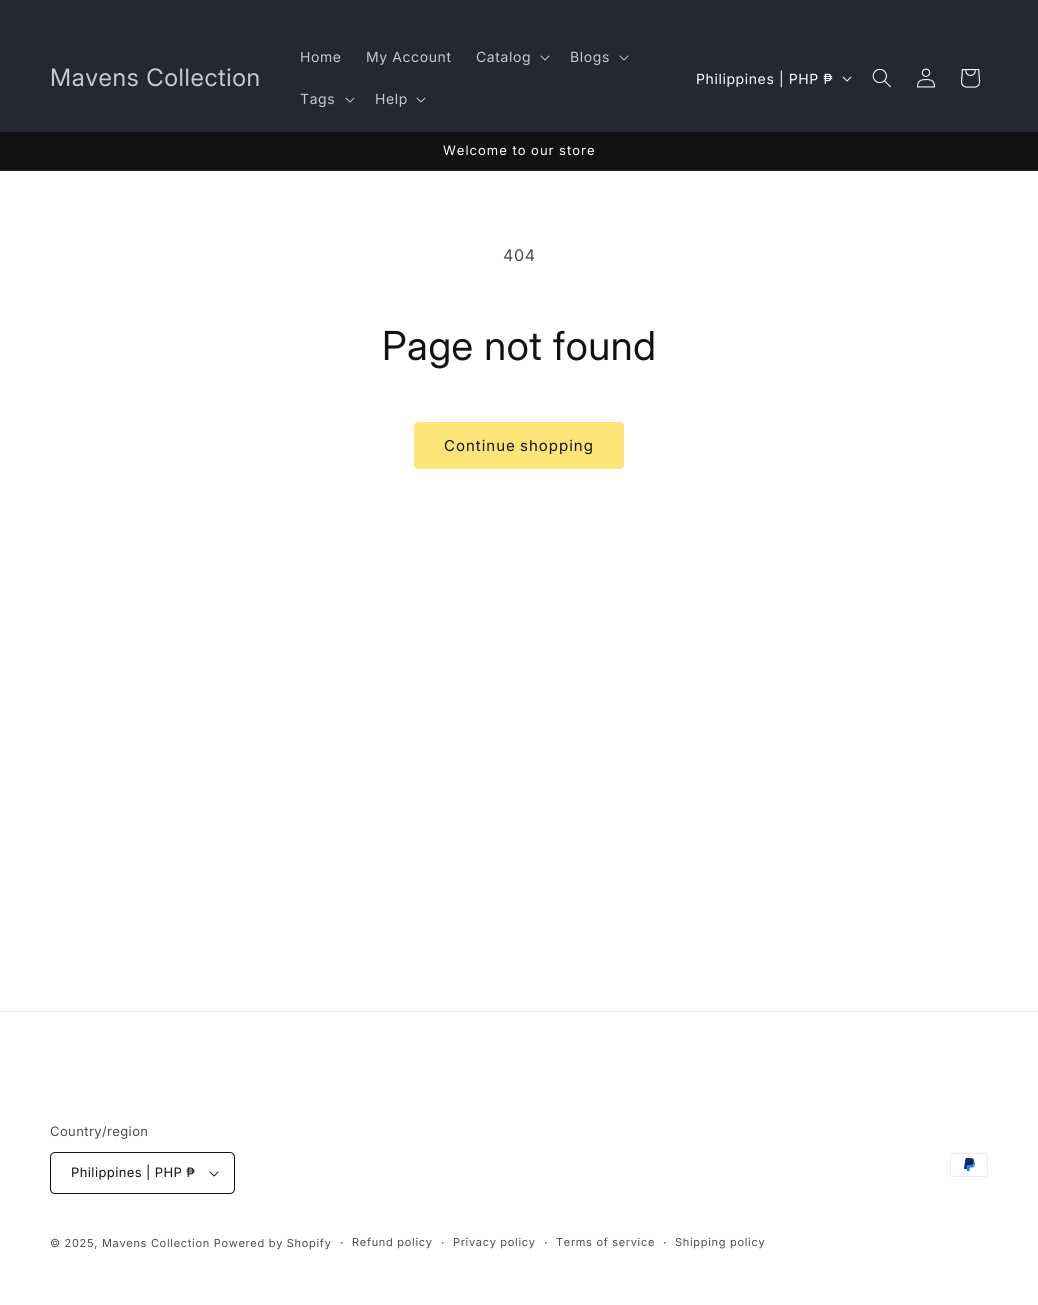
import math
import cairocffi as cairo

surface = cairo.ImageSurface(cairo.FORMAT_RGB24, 1038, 1305)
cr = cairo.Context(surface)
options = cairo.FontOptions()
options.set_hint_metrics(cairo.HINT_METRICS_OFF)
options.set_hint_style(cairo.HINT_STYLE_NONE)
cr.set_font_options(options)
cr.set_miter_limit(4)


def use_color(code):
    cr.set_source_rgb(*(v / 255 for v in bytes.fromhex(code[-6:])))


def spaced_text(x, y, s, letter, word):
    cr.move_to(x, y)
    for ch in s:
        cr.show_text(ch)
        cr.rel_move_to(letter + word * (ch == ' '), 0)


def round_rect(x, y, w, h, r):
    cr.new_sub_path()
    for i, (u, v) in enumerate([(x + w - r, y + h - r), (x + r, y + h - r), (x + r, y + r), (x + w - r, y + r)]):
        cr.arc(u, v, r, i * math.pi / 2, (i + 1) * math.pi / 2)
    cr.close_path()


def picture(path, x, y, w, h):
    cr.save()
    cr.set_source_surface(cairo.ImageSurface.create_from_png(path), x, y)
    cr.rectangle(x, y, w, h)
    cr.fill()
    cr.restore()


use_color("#ffffff")
cr.paint()
use_color("#242833")
cr.rectangle(0, 0, 1038, 132)
cr.fill()
cr.select_font_face("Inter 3")
cr.set_font_size(24)
use_color("#c8c9cc")
spaced_text(50, 86, "Mavens Collection", 0.6, 0)
cr.select_font_face("Inter")
cr.set_font_size(14)
spaced_text(300, 62, "Home", 0.6, 0)
spaced_text(366, 62, "My Account", 0.6, 0)
spaced_text(476, 62, "Catalog", 0.6, 0)
picture("img1.png", 540, 55, 10, 6)
spaced_text(570, 62, "Blogs", 0.6, 0)
picture("img1.png", 619, 55, 10, 6)
spaced_text(300, 104, "Tags", 0.6, 0)
picture("img1.png", 345, 97, 10, 6)
spaced_text(375, 104, "Help", 0.6, 0)
picture("img1.png", 416, 97, 10, 6)
use_color("#ffffff")
spaced_text(696, 84, "Philippines | PHP ₱", 0.6, 0)
picture("img2.png", 842, 76, 10, 6)
picture("img3.png", 872, 68, 19, 20)
picture("img4.png", 917, 68, 18, 20)
picture("img5.png", 961, 69, 20, 19)
use_color("#121212")
cr.rectangle(0, 132, 1038, 38)
cr.fill()
use_color("#252525")
cr.rectangle(0, 170, 1038, 1)
cr.fill()
cr.set_font_size(13)
use_color("#ffffff")
spaced_text(443, 155, "Welcome to our store", 1, 0)
cr.set_font_size(16)
use_color("#4d4d4d")
spaced_text(503, 261, "404", 0.6, 0)
cr.select_font_face("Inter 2")
cr.set_font_size(40)
use_color("#121212")
spaced_text(382, 360, "Page not found", 0.6, 0)
use_color("#fce477")
round_rect(414, 422, 210, 47, 5)
cr.fill()
round_rect(414.5, 422.5, 209, 46, 4.5)
cr.set_line_width(1)
cr.stroke()
cr.select_font_face("Inter")
cr.set_font_size(15)
use_color("#121212")
spaced_text(444, 451, "Continue shopping", 1, -1)
use_color("#ececec")
cr.rectangle(0, 1011, 1038, 1)
cr.fill()
cr.set_font_size(13)
use_color("#4d4d4d")
spaced_text(50, 1136, "Country/region", 0.4, 0)
picture("img6.png", 209, 1171, 10, 6)
round_rect(50.5, 1152.5, 184, 41, 4.5)
use_color("#121212")
cr.stroke()
spaced_text(71, 1177, "Philippines | PHP ₱", 0.4, 0)
picture("img7.png", 950, 1153, 38, 24)
cr.set_font_size(11)
use_color("#4d4d4d")
spaced_text(50, 1247, "© 2025, Mavens Collection Powered by Shopify", 0.7, 0)
cr.set_font_size(12)
spaced_text(340, 1247, "·", 0.7, 0)
cr.set_font_size(11)
spaced_text(352, 1246, "Refund policy", 0.7, 0)
cr.set_font_size(12)
spaced_text(441, 1247, "·", 0.7, 0)
cr.set_font_size(11)
spaced_text(453, 1246, "Privacy policy", 0.7, 0)
cr.set_font_size(12)
spaced_text(544, 1247, "·", 0.7, 0)
cr.set_font_size(11)
spaced_text(556, 1246, "Terms of service", 0.7, 0)
cr.set_font_size(12)
spaced_text(663, 1247, "·", 0.7, 0)
cr.set_font_size(11)
spaced_text(675, 1246, "Shipping policy", 0.7, 0)
surface.write_to_png("result.png")
